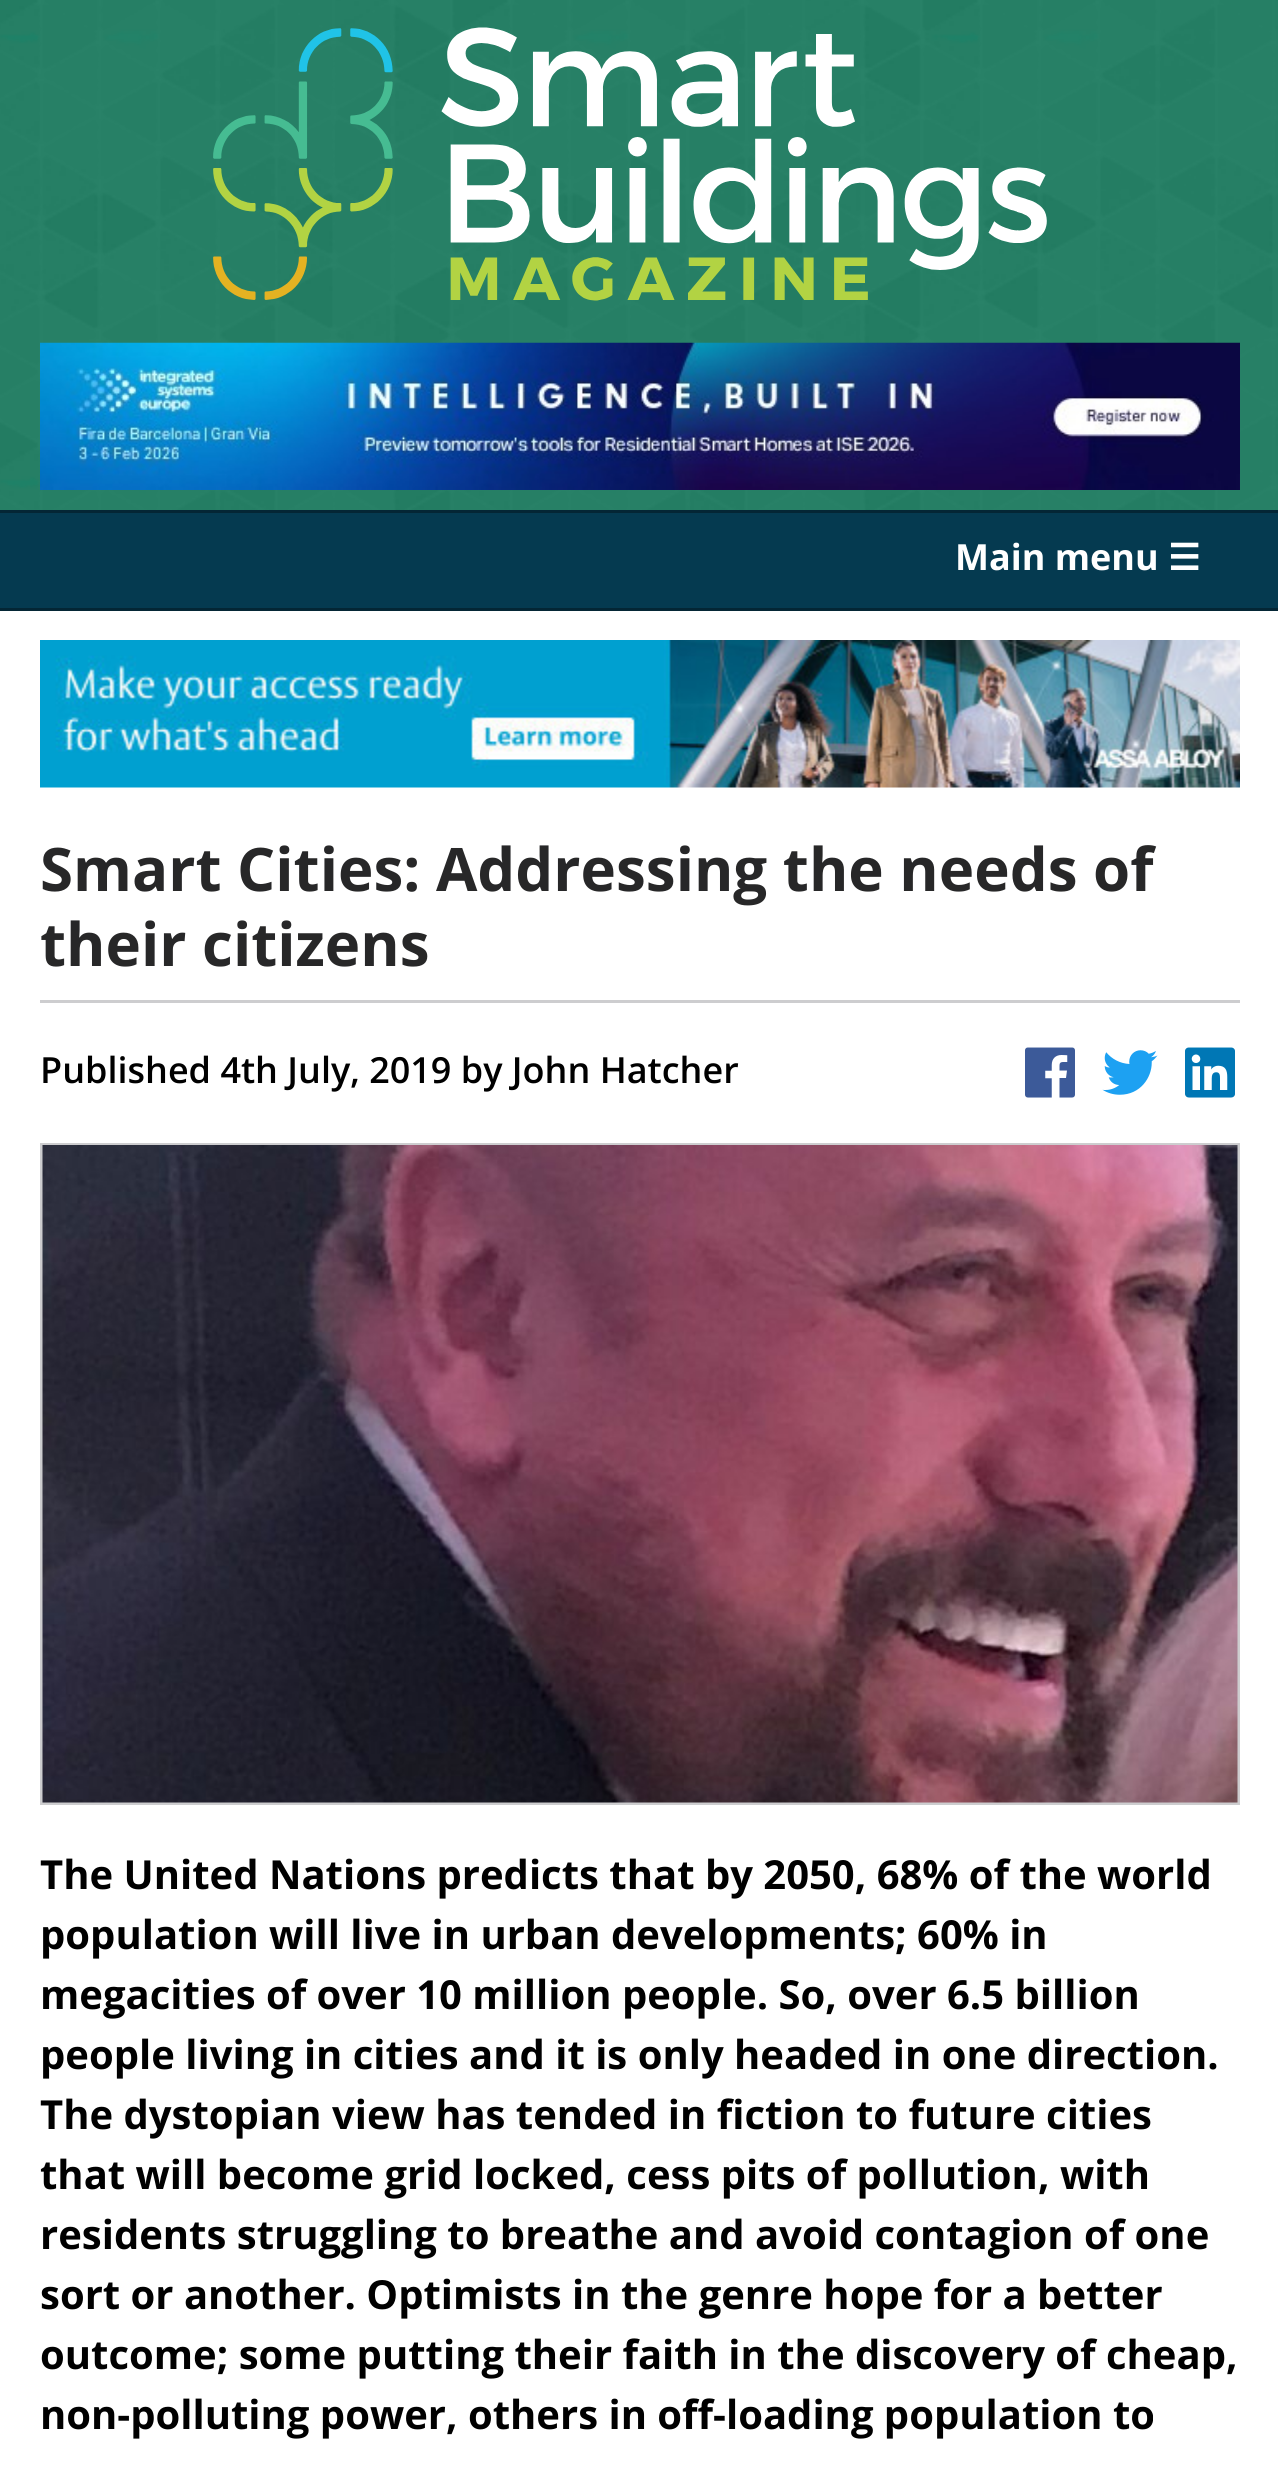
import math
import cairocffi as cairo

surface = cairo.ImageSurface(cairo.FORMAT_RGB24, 1278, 2468)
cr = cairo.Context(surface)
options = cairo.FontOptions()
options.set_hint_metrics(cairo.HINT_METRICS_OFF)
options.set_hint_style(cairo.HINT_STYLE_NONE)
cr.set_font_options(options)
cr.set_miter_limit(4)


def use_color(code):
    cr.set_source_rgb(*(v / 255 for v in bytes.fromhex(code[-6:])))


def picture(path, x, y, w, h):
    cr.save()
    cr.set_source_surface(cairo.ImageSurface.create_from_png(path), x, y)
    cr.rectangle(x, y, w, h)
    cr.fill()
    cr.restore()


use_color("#ffffff")
cr.paint()
use_color("#046c4e")
cr.rectangle(0, 0, 1278, 510)
cr.fill()
picture("img1.png", 0, 0, 1278, 510)
use_color("#042635")
cr.rectangle(0, 510, 1278, 3)
cr.fill()
picture("img2.png", 213, 27, 834, 274)
picture("img3.png", 40, 342, 1200, 148)
use_color("#053a50")
cr.rectangle(0, 513, 1278, 95)
cr.fill()
use_color("#042635")
cr.rectangle(0, 608, 1278, 3)
cr.fill()
cr.select_font_face("Open Sans", cairo.FONT_SLANT_NORMAL, cairo.FONT_WEIGHT_BOLD)
cr.set_font_size(36)
use_color("#ffffff")
cr.move_to(955, 570)
cr.show_text("Main menu")
cr.select_font_face("DejaVu Sans", cairo.FONT_SLANT_NORMAL, cairo.FONT_WEIGHT_BOLD)
cr.move_to(1168, 570)
cr.show_text("☰")
picture("img4.png", 40, 640, 1200, 148)
use_color("#cdcdcf")
cr.rectangle(40, 1000, 1200, 3)
cr.fill()
cr.select_font_face("Open Sans", cairo.FONT_SLANT_NORMAL, cairo.FONT_WEIGHT_BOLD)
cr.set_font_size(60)
use_color("#272728")
cr.move_to(40, 891)
cr.show_text("Smart Cities: Addressing the needs of")
cr.move_to(40, 966)
cr.show_text("their citizens")
cr.select_font_face("Open Sans SemiBold")
cr.set_font_size(36)
use_color("#000000")
cr.move_to(40, 1083)
cr.show_text("Published 4th July, 2019 by John Hatcher")
picture("img5.png", 1025, 1047, 50, 51)
picture("img6.png", 1102, 1050, 56, 45)
picture("img7.png", 1185, 1047, 50, 51)
cr.rectangle(41.5, 1144.5, 1197, 659)
use_color("#cdcdcf")
cr.set_line_width(3)
cr.stroke()
picture("img8.png", 42, 1145, 1196, 658)
cr.select_font_face("Open Sans", cairo.FONT_SLANT_NORMAL, cairo.FONT_WEIGHT_BOLD)
cr.set_font_size(40)
use_color("#000000")
cr.move_to(40, 1889)
cr.show_text("The United Nations predicts that by 2050, 68% of the world")
cr.move_to(40, 1949)
cr.show_text("population will live in urban developments; 60% in")
cr.move_to(40, 2009)
cr.show_text("megacities of over 10 million people. So, over 6.5 billion")
cr.move_to(40, 2069)
cr.show_text("people living in cities and it is only headed in one direction.")
cr.move_to(40, 2129)
cr.show_text("The dystopian view has tended in fiction to future cities")
cr.move_to(40, 2189)
cr.show_text("that will become grid locked, cess pits of pollution, with")
cr.move_to(40, 2249)
cr.show_text("residents struggling to breathe and avoid contagion of one")
cr.move_to(40, 2309)
cr.show_text("sort or another. Optimists in the genre hope for a better")
cr.move_to(40, 2369)
cr.show_text("outcome; some putting their faith in the discovery of cheap,")
cr.move_to(40, 2429)
cr.show_text("non-polluting power, others in off-loading population to")
surface.write_to_png("result.png")
